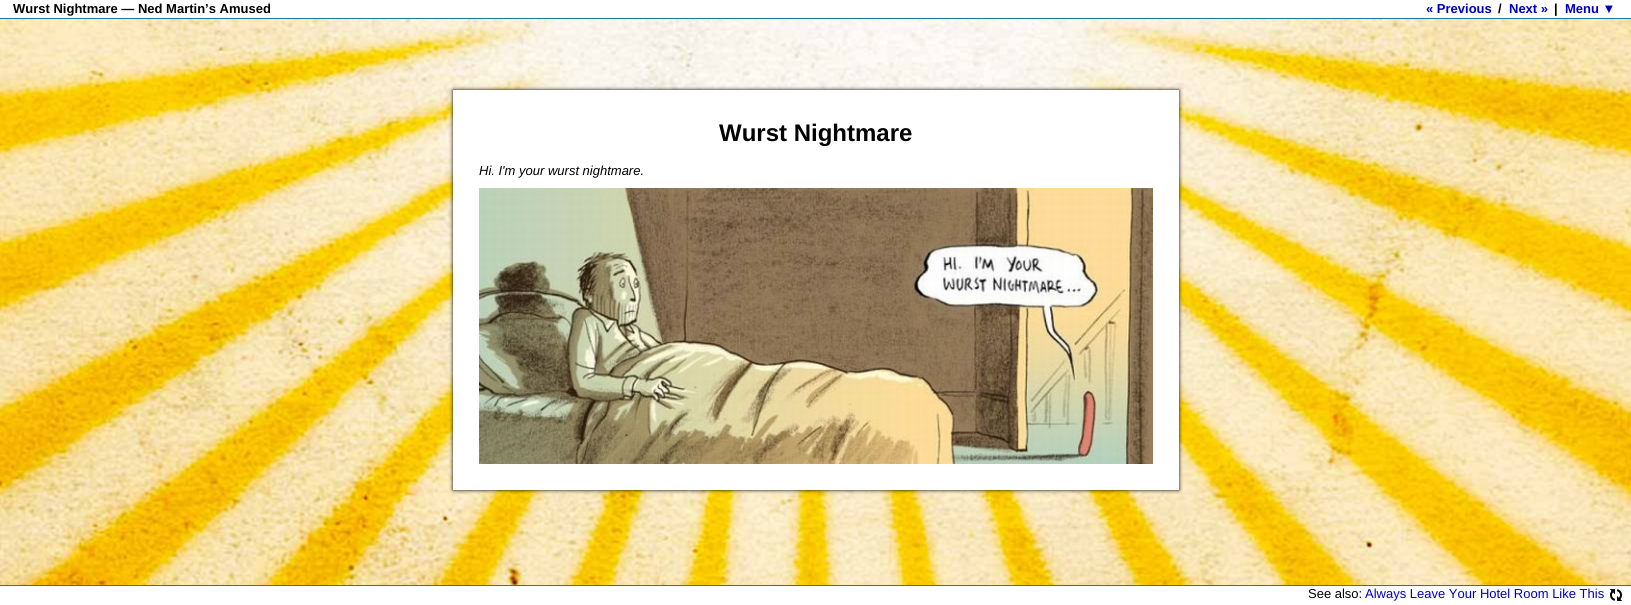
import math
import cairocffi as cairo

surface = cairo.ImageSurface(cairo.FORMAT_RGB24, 1631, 605)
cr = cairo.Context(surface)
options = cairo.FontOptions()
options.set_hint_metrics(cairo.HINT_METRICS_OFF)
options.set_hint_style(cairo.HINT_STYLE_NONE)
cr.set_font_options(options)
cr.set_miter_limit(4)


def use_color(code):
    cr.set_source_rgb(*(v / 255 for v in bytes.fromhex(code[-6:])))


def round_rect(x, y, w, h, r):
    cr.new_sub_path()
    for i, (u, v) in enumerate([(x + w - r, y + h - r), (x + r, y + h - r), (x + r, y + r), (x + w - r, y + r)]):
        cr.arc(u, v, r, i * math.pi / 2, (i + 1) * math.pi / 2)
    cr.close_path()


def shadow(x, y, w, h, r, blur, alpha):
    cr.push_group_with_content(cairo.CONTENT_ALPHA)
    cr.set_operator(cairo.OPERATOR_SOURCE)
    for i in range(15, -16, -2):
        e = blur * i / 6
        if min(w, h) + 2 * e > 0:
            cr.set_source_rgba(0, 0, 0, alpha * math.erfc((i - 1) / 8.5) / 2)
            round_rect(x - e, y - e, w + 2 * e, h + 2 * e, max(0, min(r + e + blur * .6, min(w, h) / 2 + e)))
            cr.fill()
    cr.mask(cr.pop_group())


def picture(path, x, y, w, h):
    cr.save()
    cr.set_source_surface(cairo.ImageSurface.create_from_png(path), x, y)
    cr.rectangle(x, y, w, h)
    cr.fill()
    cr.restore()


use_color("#ffffff")
cr.paint()
picture("img1.png", 0, 19, 1631, 566)
use_color("#1e78a0")
cr.rectangle(0, 18, 1631, 1)
cr.fill()
cr.select_font_face("Liberation Sans", cairo.FONT_SLANT_NORMAL, cairo.FONT_WEIGHT_BOLD)
cr.set_font_size(13)
use_color("#000000")
cr.move_to(13, 13)
cr.show_text("Wurst Nightmare — Ned Martin’s Amused")
use_color("#0000c0")
cr.move_to(1426, 13)
cr.show_text("« Previous")
use_color("#000000")
cr.move_to(1498, 13)
cr.show_text("/")
use_color("#0000c0")
cr.move_to(1509, 13)
cr.show_text("Next »")
use_color("#000000")
cr.move_to(1554, 13)
cr.show_text("|")
use_color("#0000c0")
cr.move_to(1565, 13)
cr.show_text("Menu ▼")
use_color("#000000")
shadow(453, 90, 726, 400, 0, 2, 1)
use_color("#ffffff")
cr.rectangle(453, 90, 726, 400)
cr.fill()
cr.set_font_size(24)
use_color("#000000")
cr.move_to(719, 141)
cr.show_text("Wurst Nightmare")
cr.select_font_face("Liberation Sans", cairo.FONT_SLANT_ITALIC)
cr.set_font_size(13)
cr.move_to(479, 175)
cr.show_text("Hi. I'm your wurst nightmare.")
picture("img2.png", 479, 188, 674, 276)
use_color("#1e78a0")
cr.rectangle(0, 585, 1631, 1)
cr.fill()
cr.select_font_face("Liberation Sans")
use_color("#000000")
cr.move_to(1308, 598)
cr.show_text("See also:")
use_color("#0000c0")
cr.move_to(1365, 598)
cr.show_text("Always Leave Your Hotel Room Like This")
picture("img3.png", 1609, 589, 14, 12)
surface.write_to_png("result.png")
